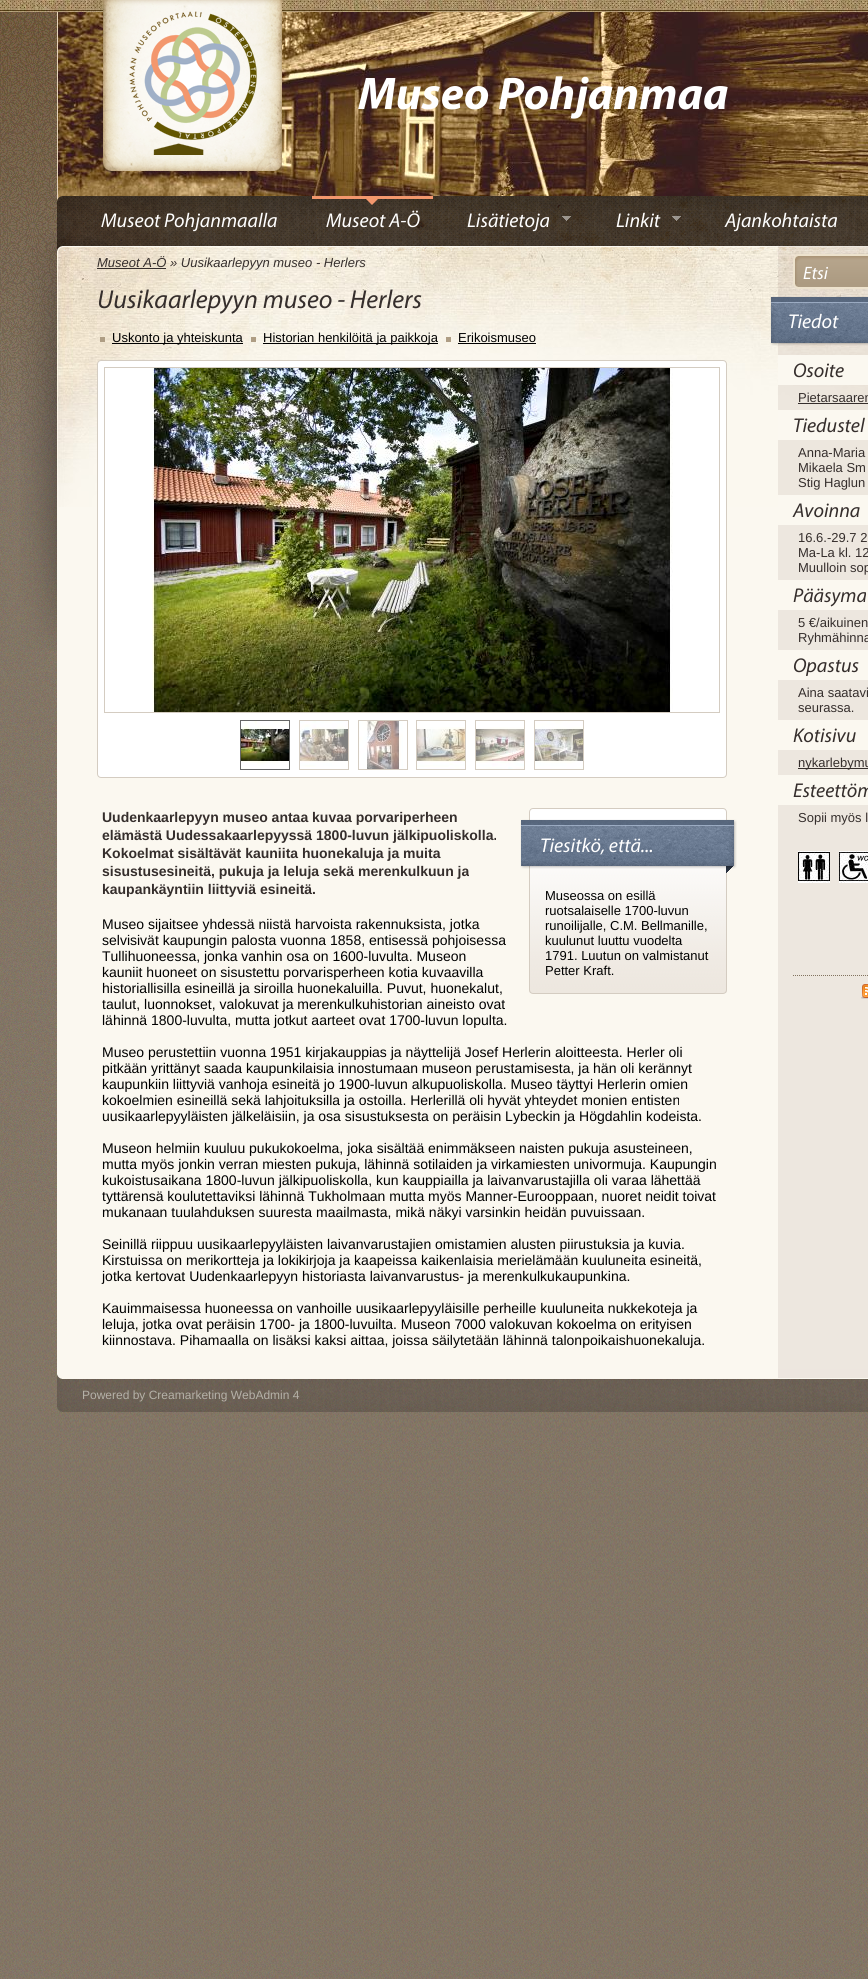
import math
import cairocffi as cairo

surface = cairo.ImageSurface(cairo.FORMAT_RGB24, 868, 1979)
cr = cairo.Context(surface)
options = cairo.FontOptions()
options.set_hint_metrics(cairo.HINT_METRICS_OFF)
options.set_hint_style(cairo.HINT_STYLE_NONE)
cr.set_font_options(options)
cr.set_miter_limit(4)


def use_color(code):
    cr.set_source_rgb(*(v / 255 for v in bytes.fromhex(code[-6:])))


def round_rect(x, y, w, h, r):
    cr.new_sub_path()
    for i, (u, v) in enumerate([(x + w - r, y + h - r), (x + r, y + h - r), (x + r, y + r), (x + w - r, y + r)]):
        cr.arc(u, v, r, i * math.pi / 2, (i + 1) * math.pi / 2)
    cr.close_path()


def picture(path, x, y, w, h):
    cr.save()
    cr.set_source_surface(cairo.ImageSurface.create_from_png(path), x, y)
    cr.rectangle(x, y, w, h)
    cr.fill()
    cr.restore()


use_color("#ffffff")
cr.paint()
picture("img1.png", 0, 1213, 868, 766)
picture("img2.png", 0, 12, 58, 1201)
picture("img3.png", 0, 0, 868, 12)
picture("img4.png", 58, 12, 810, 187)
use_color("#e5d2ba")
cr.rectangle(57, 12, 1, 189)
cr.fill()
picture("img5.png", 103, 0, 179, 171)
cr.select_font_face("Myriad", cairo.FONT_SLANT_ITALIC, cairo.FONT_WEIGHT_BOLD)
cr.set_font_size(46)
use_color("#ffffff")
cr.move_to(358, 109)
cr.show_text("Museo Pohjanmaa")
picture("img6.png", 20, 233, 37, 418)
picture("img7.png", 57, 196, 811, 55)
cr.select_font_face("Myriad", cairo.FONT_SLANT_ITALIC)
cr.set_font_size(20)
cr.move_to(101, 227)
cr.show_text("Museot Pohjanmaalla")
use_color("#f3976d")
cr.rectangle(312, 196, 121, 3)
cr.fill()
picture("img8.png", 366, 199, 12, 6)
use_color("#ffffff")
cr.move_to(326, 227)
cr.show_text("Museot A-Ö")
cr.move_to(467, 227)
cr.show_text("Lisätietoja")
picture("img9.png", 562, 216, 9, 5)
cr.move_to(616, 227)
cr.show_text("Linkit")
picture("img10.png", 672, 216, 9, 5)
cr.move_to(725, 227)
cr.show_text("Ajankohtaista")
picture("img11.png", 57, 246, 811, 5)
cr.set_source_rgba(0.302, 0.102, 0.102, 0.08)
cr.rectangle(778, 246, 90, 5)
cr.fill()
use_color("#fbf8f0")
cr.rectangle(57, 507, 811, 862)
cr.fill()
picture("img12.png", 57, 251, 811, 256)
use_color("#352e2c")
cr.rectangle(97, 268, 69, 1)
cr.fill()
cr.select_font_face("Liberation Sans", cairo.FONT_SLANT_ITALIC)
cr.set_font_size(13)
cr.move_to(97, 267)
cr.show_text("Museot A-Ö » Uusikaarlepyyn museo - Herlers")
cr.select_font_face("Myriad", cairo.FONT_SLANT_ITALIC)
cr.set_font_size(26)
cr.move_to(97, 308)
cr.show_text("Uusikaarlepyyn museo - Herlers")
use_color("#ae9d84")
cr.rectangle(100, 337, 5, 5)
cr.fill()
use_color("#000000")
cr.rectangle(112, 343, 131, 1)
cr.fill()
cr.select_font_face("Liberation Sans")
cr.set_font_size(13)
cr.move_to(112, 342)
cr.show_text("Uskonto ja yhteiskunta")
use_color("#ae9d84")
cr.rectangle(251, 337, 5, 5)
cr.fill()
use_color("#000000")
cr.rectangle(263, 343, 175, 1)
cr.fill()
cr.move_to(263, 342)
cr.show_text("Historian henkilöitä ja paikkoja")
use_color("#ae9d84")
cr.rectangle(446, 337, 5, 5)
cr.fill()
use_color("#000000")
cr.move_to(458, 342)
cr.show_text("Erikoismuseo")
cr.rectangle(458, 343, 78, 1)
cr.fill()
use_color("#ffffff")
round_rect(97.5, 360.5, 629, 417, 3.5)
cr.fill_preserve()
use_color("#d4ccc1")
cr.set_line_width(1)
cr.stroke()
cr.rectangle(104.5, 367.5, 615, 345)
cr.stroke()
picture("img13.png", 152, 368, 521, 344)
cr.rectangle(240.5, 720.5, 49, 49)
use_color("#666666")
cr.stroke()
picture("img14.png", 241, 721, 48, 48)
cr.rectangle(299.5, 720.5, 49, 49)
use_color("#d4ccc1")
cr.stroke()
picture("img15.png", 300, 721, 48, 46)
cr.rectangle(358.5, 720.5, 49, 49)
cr.stroke()
picture("img16.png", 359, 721, 44, 48)
cr.rectangle(416.5, 720.5, 49, 49)
cr.stroke()
picture("img17.png", 417, 727, 48, 42)
cr.rectangle(475.5, 720.5, 49, 49)
cr.stroke()
picture("img18.png", 476, 727, 48, 42)
cr.rectangle(534.5, 720.5, 49, 49)
cr.stroke()
picture("img19.png", 535, 721, 48, 48)
cr.select_font_face("Liberation Sans", cairo.FONT_SLANT_NORMAL, cairo.FONT_WEIGHT_BOLD)
cr.set_font_size(14)
use_color("#352e2c")
cr.move_to(102, 822)
cr.show_text("Uudenkaarlepyyn museo antaa kuvaa porvariperheen")
cr.move_to(102, 840)
cr.show_text("elämästä Uudessakaarlepyyssä 1800-luvun jälkipuoliskolla.")
cr.move_to(102, 858)
cr.show_text("Kokoelmat sisältävät kauniita huonekaluja ja muita")
cr.move_to(102, 876)
cr.show_text("sisustusesineitä, pukuja ja leluja sekä merenkulkuun ja")
cr.move_to(102, 894)
cr.show_text("kaupankäyntiin liittyviä esineitä.")
picture("img20.png", 529, 809, 198, 184)
round_rect(529.5, 808.5, 197, 185, 3.5)
use_color("#d4ccc1")
cr.stroke()
picture("img21.png", 520, 819, 217, 54)
cr.select_font_face("Myriad", cairo.FONT_SLANT_ITALIC)
cr.set_font_size(20)
use_color("#ffffff")
cr.move_to(540, 852)
cr.show_text("Tiesitkö, että...")
cr.select_font_face("Liberation Sans")
cr.set_font_size(13)
use_color("#000000")
cr.move_to(545, 900)
cr.show_text("Museossa on esillä")
cr.move_to(545, 915)
cr.show_text("ruotsalaiselle 1700-luvun")
cr.move_to(545, 930)
cr.show_text("runoilijalle, C.M. Bellmanille,")
cr.move_to(545, 945)
cr.show_text("kuulunut luuttu vuodelta")
cr.move_to(545, 960)
cr.show_text("1791. Luutun on valmistanut")
cr.move_to(545, 975)
cr.show_text("Petter Kraft.")
cr.set_font_size(14)
cr.move_to(102, 929)
cr.show_text("Museo sijaitsee yhdessä niistä harvoista rakennuksista, jotka")
cr.move_to(102, 945)
cr.show_text("selvisivät kaupungin palosta vuonna 1858, entisessä pohjoisessa")
cr.move_to(102, 961)
cr.show_text("Tullihuoneessa, jonka vanhin osa on 1600-luvulta. Museon")
cr.move_to(102, 977)
cr.show_text("kauniit huoneet on sisustettu porvarisperheen kotia kuvaavilla")
cr.move_to(102, 993)
cr.show_text("historiallisilla esineillä ja siroilla huonekaluilla. Puvut, huonekalut,")
cr.move_to(102, 1009)
cr.show_text("taulut, luonnokset, valokuvat ja merenkulkuhistorian aineisto ovat")
cr.move_to(102, 1025)
cr.show_text("lähinnä 1800-luvulta, mutta jotkut aarteet ovat 1700-luvun lopulta.")
cr.move_to(102, 1057)
cr.show_text("Museo perustettiin vuonna 1951 kirjakauppias ja näyttelijä Josef Herlerin aloitteesta. Herler oli")
cr.move_to(102, 1073)
cr.show_text("pitkään yrittänyt saada kaupunkilaisia innostumaan museon perustamisesta, ja hän oli kerännyt")
cr.move_to(102, 1089)
cr.show_text("kaupunkiin liittyviä vanhoja esineitä jo 1900-luvun alkupuoliskolla. Museo täyttyi Herlerin omien")
cr.move_to(102, 1105)
cr.show_text("kokoelmien esineillä sekä lahjoituksilla ja ostoilla. Herlerillä oli hyvät yhteydet monien entisten")
cr.move_to(102, 1121)
cr.show_text("uusikaarlepyyläisten jälkeläisiin, ja osa sisustuksesta on peräisin Lybeckin ja Högdahlin kodeista.")
cr.move_to(102, 1153)
cr.show_text("Museon helmiin kuuluu pukukokoelma, joka sisältää enimmäkseen naisten pukuja asusteineen,")
cr.move_to(102, 1169)
cr.show_text("mutta myös jonkin verran miesten pukuja, lähinnä sotilaiden ja virkamiesten univormuja. Kaupungin")
cr.move_to(102, 1185)
cr.show_text("kukoistusaikana 1800-luvun jälkipuoliskolla, kun kauppiailla ja laivanvarustajilla oli varaa lähettää")
cr.move_to(102, 1201)
cr.show_text("tyttärensä koulutettaviksi lähinnä Tukholmaan mutta myös Manner-Eurooppaan, nuoret neidit toivat")
cr.move_to(102, 1217)
cr.show_text("mukanaan tuulahduksen suuresta maailmasta, mikä näkyi varsinkin heidän puvuissaan.")
cr.move_to(102, 1249)
cr.show_text("Seinillä riippuu uusikaarlepyyläisten laivanvarustajien omistamien alusten piirustuksia ja kuvia.")
cr.move_to(102, 1265)
cr.show_text("Kirstuissa on merikortteja ja lokikirjoja ja kaapeissa kaikenlaisia merielämään kuuluneita esineitä,")
cr.move_to(102, 1281)
cr.show_text("jotka kertovat Uudenkaarlepyyn historiasta laivanvarustus- ja merenkulkukaupunkina.")
cr.move_to(102, 1313)
cr.show_text("Kauimmaisessa huoneessa on vanhoille uusikaarlepyyläisille perheille kuuluneita nukkekoteja ja")
cr.move_to(102, 1329)
cr.show_text("leluja, jotka ovat peräisin 1700- ja 1800-luvuilta. Museon 7000 valokuvan kokoelma on erityisen")
cr.move_to(102, 1345)
cr.show_text("kiinnostava. Pihamaalla on lisäksi kaksi aittaa, joissa säilytetään lähinnä talonpoikaishuonekaluja.")
cr.set_source_rgba(0.302, 0.102, 0.102, 0.08)
cr.rectangle(778, 251, 90, 1118)
cr.fill()
picture("img22.png", 793, 254, 75, 35)
cr.select_font_face("Myriad", cairo.FONT_SLANT_ITALIC)
cr.set_font_size(18)
use_color("#ffffff")
cr.move_to(803, 279)
cr.show_text("Etsi")
picture("img23.png", 770, 296, 98, 50)
cr.set_font_size(20)
cr.move_to(788, 328)
cr.show_text("Tiedot")
use_color("#fbf8f0")
cr.rectangle(778, 355, 90, 30)
cr.fill()
use_color("#352e2c")
cr.move_to(793, 377)
cr.show_text("Osoite")
cr.select_font_face("Liberation Sans")
cr.set_font_size(13)
cr.move_to(798, 402)
cr.show_text("Pietarsaaren")
cr.rectangle(798, 403, 70, 1)
cr.fill()
use_color("#fbf8f0")
cr.rectangle(778, 410, 90, 30)
cr.fill()
cr.select_font_face("Myriad", cairo.FONT_SLANT_ITALIC)
cr.set_font_size(20)
use_color("#352e2c")
cr.move_to(793, 432)
cr.show_text("Tiedustel")
cr.select_font_face("Liberation Sans")
cr.set_font_size(13)
cr.move_to(798, 457)
cr.show_text("Anna-Maria")
cr.move_to(798, 472)
cr.show_text("Mikaela Sm")
cr.move_to(798, 487)
cr.show_text("Stig Haglun")
use_color("#fbf8f0")
cr.rectangle(778, 495, 90, 30)
cr.fill()
cr.select_font_face("Myriad", cairo.FONT_SLANT_ITALIC)
cr.set_font_size(20)
use_color("#352e2c")
cr.move_to(793, 517)
cr.show_text("Avoinna")
cr.select_font_face("Liberation Sans")
cr.set_font_size(13)
cr.move_to(798, 542)
cr.show_text("16.6.-29.7 2")
cr.move_to(798, 557)
cr.show_text("Ma-La kl. 12")
cr.move_to(798, 572)
cr.show_text("Muulloin sop")
use_color("#fbf8f0")
cr.rectangle(778, 580, 90, 30)
cr.fill()
cr.select_font_face("Myriad", cairo.FONT_SLANT_ITALIC)
cr.set_font_size(20)
use_color("#352e2c")
cr.move_to(793, 602)
cr.show_text("Pääsyma")
cr.select_font_face("Liberation Sans")
cr.set_font_size(13)
cr.move_to(798, 627)
cr.show_text("5 €/aikuinen")
cr.move_to(798, 642)
cr.show_text("Ryhmähinna")
use_color("#fbf8f0")
cr.rectangle(778, 650, 90, 30)
cr.fill()
cr.select_font_face("Myriad", cairo.FONT_SLANT_ITALIC)
cr.set_font_size(20)
use_color("#352e2c")
cr.move_to(793, 672)
cr.show_text("Opastus")
cr.select_font_face("Liberation Sans")
cr.set_font_size(13)
cr.move_to(798, 697)
cr.show_text("Aina saatavi")
cr.move_to(798, 712)
cr.show_text("seurassa.")
use_color("#fbf8f0")
cr.rectangle(778, 720, 90, 30)
cr.fill()
cr.select_font_face("Myriad", cairo.FONT_SLANT_ITALIC)
cr.set_font_size(20)
use_color("#352e2c")
cr.move_to(793, 742)
cr.show_text("Kotisivu")
cr.rectangle(798, 768, 70, 1)
cr.fill()
cr.select_font_face("Liberation Sans")
cr.set_font_size(13)
cr.move_to(798, 767)
cr.show_text("nykarlebymu")
use_color("#fbf8f0")
cr.rectangle(778, 775, 90, 30)
cr.fill()
cr.select_font_face("Myriad", cairo.FONT_SLANT_ITALIC)
cr.set_font_size(20)
use_color("#352e2c")
cr.move_to(793, 797)
cr.show_text("Esteettöm")
cr.select_font_face("Liberation Sans")
cr.set_font_size(13)
cr.move_to(798, 822)
cr.show_text("Sopii myös l")
picture("img24.png", 798, 851, 32, 32)
picture("img25.png", 839, 851, 29, 32)
cr.new_path()
cr.move_to(793, 975.5)
cr.line_to(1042, 975.5)
use_color("#82735f")
cr.set_dash([1, 1])
cr.stroke()
picture("img26.png", 861, 984, 7, 15)
picture("img27.png", 57, 1374, 811, 38)
picture("img28.png", 57, 1369, 811, 10)
use_color("#ede6df")
cr.rectangle(778, 1369, 90, 9)
cr.fill()
cr.set_font_size(12)
use_color("#b5b1a8")
cr.move_to(82, 1399)
cr.show_text("Powered by Creamarketing WebAdmin 4")
surface.write_to_png("result.png")
